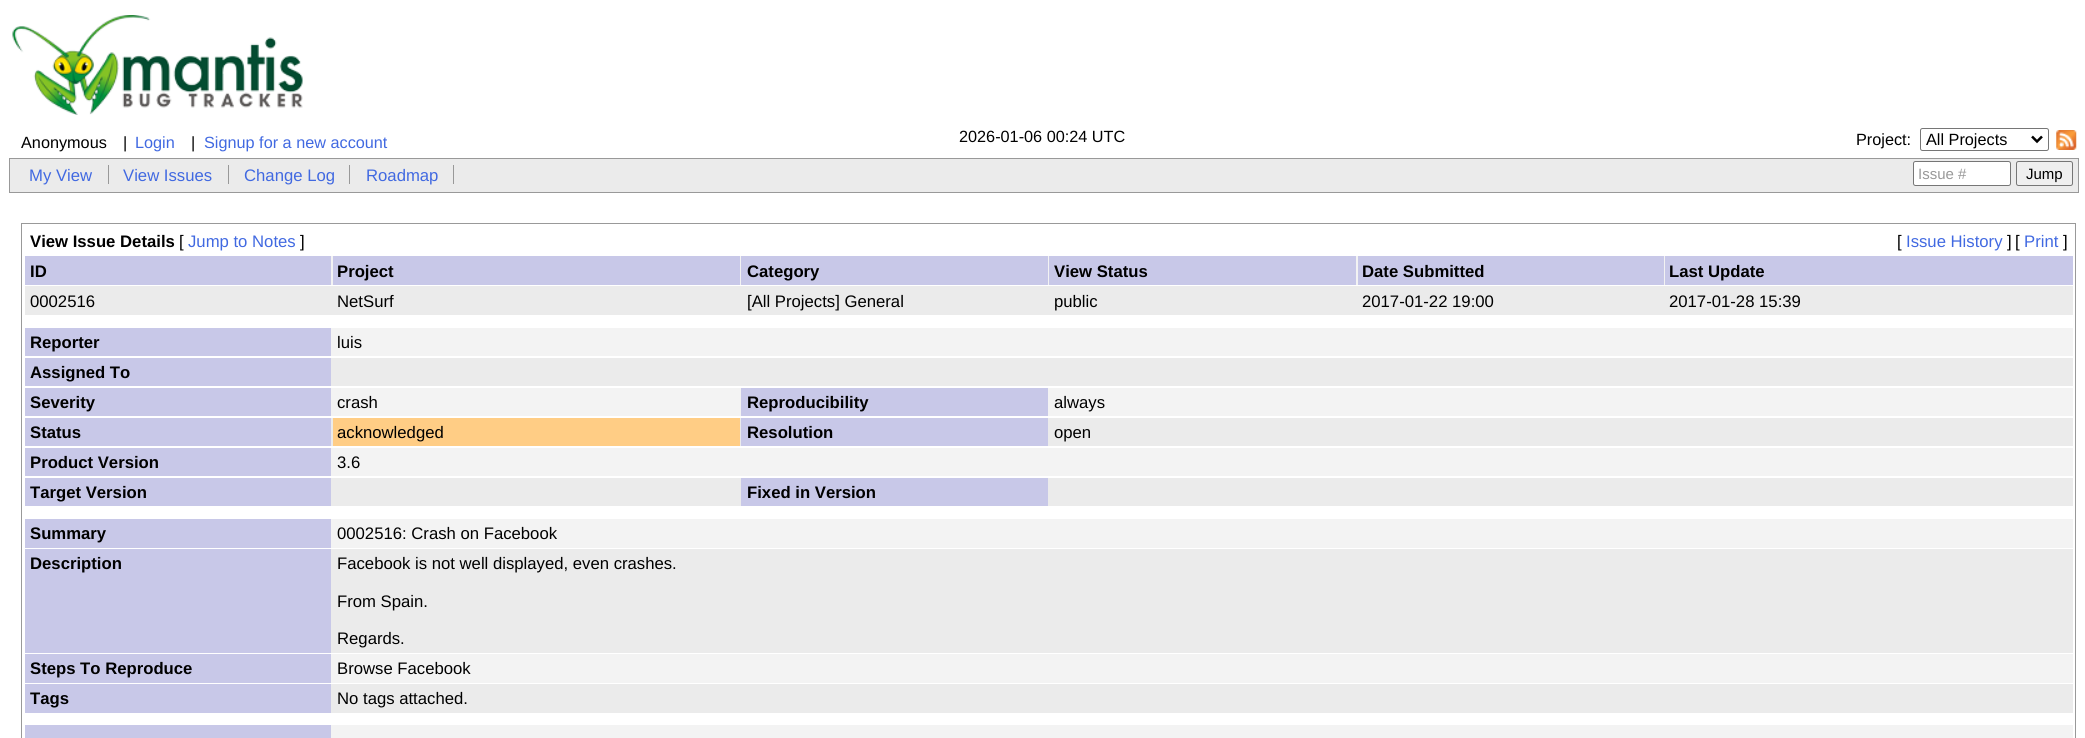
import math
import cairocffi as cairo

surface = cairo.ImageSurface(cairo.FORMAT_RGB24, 2085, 738)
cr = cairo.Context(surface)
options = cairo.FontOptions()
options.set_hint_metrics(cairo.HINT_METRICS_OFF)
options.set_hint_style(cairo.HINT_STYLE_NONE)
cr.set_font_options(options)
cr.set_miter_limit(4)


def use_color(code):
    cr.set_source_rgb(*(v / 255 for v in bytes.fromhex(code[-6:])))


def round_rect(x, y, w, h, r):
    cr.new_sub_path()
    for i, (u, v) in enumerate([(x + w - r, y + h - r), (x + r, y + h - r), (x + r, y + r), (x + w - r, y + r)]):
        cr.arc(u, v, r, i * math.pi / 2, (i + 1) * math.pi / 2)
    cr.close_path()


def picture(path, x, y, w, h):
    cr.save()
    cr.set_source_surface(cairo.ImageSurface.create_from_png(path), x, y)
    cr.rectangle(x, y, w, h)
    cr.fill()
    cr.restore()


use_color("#ffffff")
cr.paint()
picture("img1.png", 12, 15, 291, 100)
cr.select_font_face("Liberation Sans")
cr.set_font_size(16.25)
use_color("#000000")
cr.move_to(21, 148)
cr.show_text("Anonymous")
cr.move_to(123, 148)
cr.show_text("|")
use_color("#4169e1")
cr.move_to(135, 148)
cr.show_text("Login")
use_color("#000000")
cr.move_to(191, 148)
cr.show_text("|")
use_color("#4169e1")
cr.move_to(204, 148)
cr.show_text("Signup for a new account")
use_color("#000000")
cr.move_to(959, 142)
cr.show_text("2026-01-06 00:24 UTC")
cr.move_to(1856, 145)
cr.show_text("Project:")
round_rect(1920.5, 128.5, 128, 22, 2)
use_color("#767676")
cr.set_line_width(1)
cr.stroke()
cr.new_path()
cr.move_to(2032, 136.5)
cr.line_to(2037, 141.5)
cr.line_to(2042, 136.5)
use_color("#000000")
cr.set_line_width(2.5)
cr.stroke()
cr.move_to(1926, 145)
cr.show_text("All Projects")
picture("img2.png", 2056, 130, 21, 20)
use_color("#ebebeb")
cr.rectangle(9.5, 158.5, 2069, 34)
cr.fill_preserve()
use_color("#999999")
cr.set_line_width(1)
cr.stroke()
cr.set_font_size(16.7)
use_color("#4169e1")
cr.move_to(29, 181)
cr.show_text("My View")
use_color("#999999")
cr.rectangle(108, 165, 1, 19)
cr.fill()
use_color("#4169e1")
cr.move_to(123, 181)
cr.show_text("View Issues")
use_color("#999999")
cr.rectangle(228, 165, 1, 19)
cr.fill()
use_color("#4169e1")
cr.move_to(244, 181)
cr.show_text("Change Log")
use_color("#999999")
cr.rectangle(349, 165, 1, 19)
cr.fill()
use_color("#4169e1")
cr.move_to(366, 181)
cr.show_text("Roadmap")
use_color("#999999")
cr.rectangle(453, 165, 1, 19)
cr.fill()
use_color("#ffffff")
round_rect(1913.5, 161.5, 97, 24, 2)
cr.fill_preserve()
use_color("#767676")
cr.stroke()
cr.set_font_size(15)
use_color("#999999")
cr.move_to(1918, 179)
cr.show_text("Issue #")
use_color("#efefef")
round_rect(2016.5, 161.5, 56, 24, 2)
cr.fill_preserve()
use_color("#767676")
cr.stroke()
use_color("#000000")
cr.move_to(2026, 179)
cr.show_text("Jump")
cr.rectangle(21.5, 223.5, 2054, 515)
use_color("#999999")
cr.stroke()
cr.select_font_face("Liberation Sans", cairo.FONT_SLANT_NORMAL, cairo.FONT_WEIGHT_BOLD)
cr.set_font_size(16.7)
use_color("#000000")
cr.move_to(30, 247)
cr.show_text("View Issue Details")
cr.select_font_face("Liberation Sans")
cr.move_to(179, 247)
cr.show_text("[")
use_color("#4169e1")
cr.move_to(188, 247)
cr.show_text("Jump to Notes")
use_color("#000000")
cr.move_to(300, 247)
cr.show_text("]")
cr.move_to(1897, 247)
cr.show_text("[")
use_color("#4169e1")
cr.move_to(1906, 247)
cr.show_text("Issue History")
use_color("#000000")
cr.move_to(2007, 247)
cr.show_text("]")
cr.move_to(2015, 247)
cr.show_text("[")
use_color("#4169e1")
cr.move_to(2024, 247)
cr.show_text("Print")
use_color("#000000")
cr.move_to(2063, 247)
cr.show_text("]")
use_color("#f3f3f3")
cr.rectangle(331, 256, 1334, 29)
cr.fill()
use_color("#c8c8e8")
cr.rectangle(25, 256, 306, 29)
cr.fill()
cr.select_font_face("Liberation Sans", cairo.FONT_SLANT_NORMAL, cairo.FONT_WEIGHT_BOLD)
use_color("#000000")
cr.move_to(30, 277)
cr.show_text("ID")
use_color("#c8c8e8")
cr.rectangle(333, 256, 407, 29)
cr.fill()
use_color("#000000")
cr.move_to(337, 277)
cr.show_text("Project")
use_color("#c8c8e8")
cr.rectangle(741, 256, 307, 29)
cr.fill()
use_color("#000000")
cr.move_to(747, 277)
cr.show_text("Category")
use_color("#c8c8e8")
cr.rectangle(1049, 256, 307, 29)
cr.fill()
use_color("#000000")
cr.move_to(1054, 277)
cr.show_text("View Status")
use_color("#c8c8e8")
cr.rectangle(1358, 256, 306, 29)
cr.fill()
use_color("#000000")
cr.move_to(1362, 277)
cr.show_text("Date Submitted")
use_color("#c8c8e8")
cr.rectangle(1665, 256, 408, 29)
cr.fill()
use_color("#000000")
cr.move_to(1669, 277)
cr.show_text("Last Update")
use_color("#ebebeb")
cr.rectangle(25, 286, 2048, 29)
cr.fill()
cr.select_font_face("Liberation Sans")
use_color("#000000")
cr.move_to(30, 307)
cr.show_text("0002516")
cr.move_to(337, 307)
cr.show_text("NetSurf")
cr.move_to(747, 307)
cr.show_text("[All Projects] General")
cr.move_to(1054, 307)
cr.show_text("public")
cr.move_to(1362, 307)
cr.show_text("2017-01-22 19:00")
cr.move_to(1669, 307)
cr.show_text("2017-01-28 15:39")
use_color("#f3f3f3")
cr.rectangle(331, 328, 1742, 28)
cr.fill()
use_color("#c8c8e8")
cr.rectangle(25, 328, 306, 28)
cr.fill()
cr.select_font_face("Liberation Sans", cairo.FONT_SLANT_NORMAL, cairo.FONT_WEIGHT_BOLD)
use_color("#000000")
cr.move_to(30, 348)
cr.show_text("Reporter")
cr.select_font_face("Liberation Sans")
cr.move_to(337, 348)
cr.show_text("luis")
use_color("#ebebeb")
cr.rectangle(331, 358, 1742, 28)
cr.fill()
use_color("#c8c8e8")
cr.rectangle(25, 358, 306, 28)
cr.fill()
cr.select_font_face("Liberation Sans", cairo.FONT_SLANT_NORMAL, cairo.FONT_WEIGHT_BOLD)
use_color("#000000")
cr.move_to(30, 378)
cr.show_text("Assigned To")
use_color("#f3f3f3")
cr.rectangle(331, 388, 1742, 28)
cr.fill()
use_color("#c8c8e8")
cr.rectangle(25, 388, 306, 28)
cr.fill()
use_color("#000000")
cr.move_to(30, 408)
cr.show_text("Severity")
cr.select_font_face("Liberation Sans")
cr.move_to(337, 408)
cr.show_text("crash")
use_color("#c8c8e8")
cr.rectangle(741, 388, 307, 28)
cr.fill()
cr.select_font_face("Liberation Sans", cairo.FONT_SLANT_NORMAL, cairo.FONT_WEIGHT_BOLD)
use_color("#000000")
cr.move_to(747, 408)
cr.show_text("Reproducibility")
cr.select_font_face("Liberation Sans")
cr.move_to(1054, 408)
cr.show_text("always")
use_color("#ebebeb")
cr.rectangle(331, 418, 1742, 28)
cr.fill()
use_color("#c8c8e8")
cr.rectangle(25, 418, 306, 28)
cr.fill()
cr.select_font_face("Liberation Sans", cairo.FONT_SLANT_NORMAL, cairo.FONT_WEIGHT_BOLD)
use_color("#000000")
cr.move_to(30, 438)
cr.show_text("Status")
use_color("#ffcd85")
cr.rectangle(333, 418, 407, 28)
cr.fill()
cr.select_font_face("Liberation Sans")
use_color("#000000")
cr.move_to(337, 438)
cr.show_text("acknowledged")
use_color("#c8c8e8")
cr.rectangle(741, 418, 307, 28)
cr.fill()
cr.select_font_face("Liberation Sans", cairo.FONT_SLANT_NORMAL, cairo.FONT_WEIGHT_BOLD)
use_color("#000000")
cr.move_to(747, 438)
cr.show_text("Resolution")
cr.select_font_face("Liberation Sans")
cr.move_to(1054, 438)
cr.show_text("open")
use_color("#f3f3f3")
cr.rectangle(331, 448, 1742, 28)
cr.fill()
use_color("#c8c8e8")
cr.rectangle(25, 448, 306, 28)
cr.fill()
cr.select_font_face("Liberation Sans", cairo.FONT_SLANT_NORMAL, cairo.FONT_WEIGHT_BOLD)
use_color("#000000")
cr.move_to(30, 468)
cr.show_text("Product Version")
cr.select_font_face("Liberation Sans")
cr.move_to(337, 468)
cr.show_text("3.6")
use_color("#ebebeb")
cr.rectangle(331, 478, 1742, 28)
cr.fill()
use_color("#c8c8e8")
cr.rectangle(25, 478, 306, 28)
cr.fill()
cr.select_font_face("Liberation Sans", cairo.FONT_SLANT_NORMAL, cairo.FONT_WEIGHT_BOLD)
use_color("#000000")
cr.move_to(30, 498)
cr.show_text("Target Version")
use_color("#c8c8e8")
cr.rectangle(741, 478, 307, 28)
cr.fill()
use_color("#000000")
cr.move_to(747, 498)
cr.show_text("Fixed in Version")
use_color("#f3f3f3")
cr.rectangle(331, 519, 1742, 29)
cr.fill()
use_color("#c8c8e8")
cr.rectangle(25, 519, 306, 29)
cr.fill()
use_color("#000000")
cr.move_to(30, 539)
cr.show_text("Summary")
cr.select_font_face("Liberation Sans")
cr.move_to(337, 539)
cr.show_text("0002516: Crash on Facebook")
use_color("#ebebeb")
cr.rectangle(331, 549, 1742, 104)
cr.fill()
use_color("#c8c8e8")
cr.rectangle(25, 549, 306, 104)
cr.fill()
cr.select_font_face("Liberation Sans", cairo.FONT_SLANT_NORMAL, cairo.FONT_WEIGHT_BOLD)
use_color("#000000")
cr.move_to(30, 569)
cr.show_text("Description")
cr.select_font_face("Liberation Sans")
cr.move_to(337, 569)
cr.show_text("Facebook is not well displayed, even crashes.")
cr.move_to(337, 607)
cr.show_text("From Spain.")
cr.move_to(337, 644)
cr.show_text("Regards.")
use_color("#f3f3f3")
cr.rectangle(331, 654, 1742, 29)
cr.fill()
use_color("#c8c8e8")
cr.rectangle(25, 654, 306, 29)
cr.fill()
cr.select_font_face("Liberation Sans", cairo.FONT_SLANT_NORMAL, cairo.FONT_WEIGHT_BOLD)
use_color("#000000")
cr.move_to(30, 674)
cr.show_text("Steps To Reproduce")
cr.select_font_face("Liberation Sans")
cr.move_to(337, 674)
cr.show_text("Browse Facebook")
use_color("#ebebeb")
cr.rectangle(331, 684, 1742, 29)
cr.fill()
use_color("#c8c8e8")
cr.rectangle(25, 684, 306, 29)
cr.fill()
cr.select_font_face("Liberation Sans", cairo.FONT_SLANT_NORMAL, cairo.FONT_WEIGHT_BOLD)
use_color("#000000")
cr.move_to(30, 704)
cr.show_text("Tags")
cr.select_font_face("Liberation Sans")
cr.move_to(337, 704)
cr.show_text("No tags attached.")
use_color("#f3f3f3")
cr.rectangle(331, 725, 1742, 13)
cr.fill()
use_color("#c8c8e8")
cr.rectangle(25, 725, 306, 13)
cr.fill()
surface.write_to_png("result.png")
